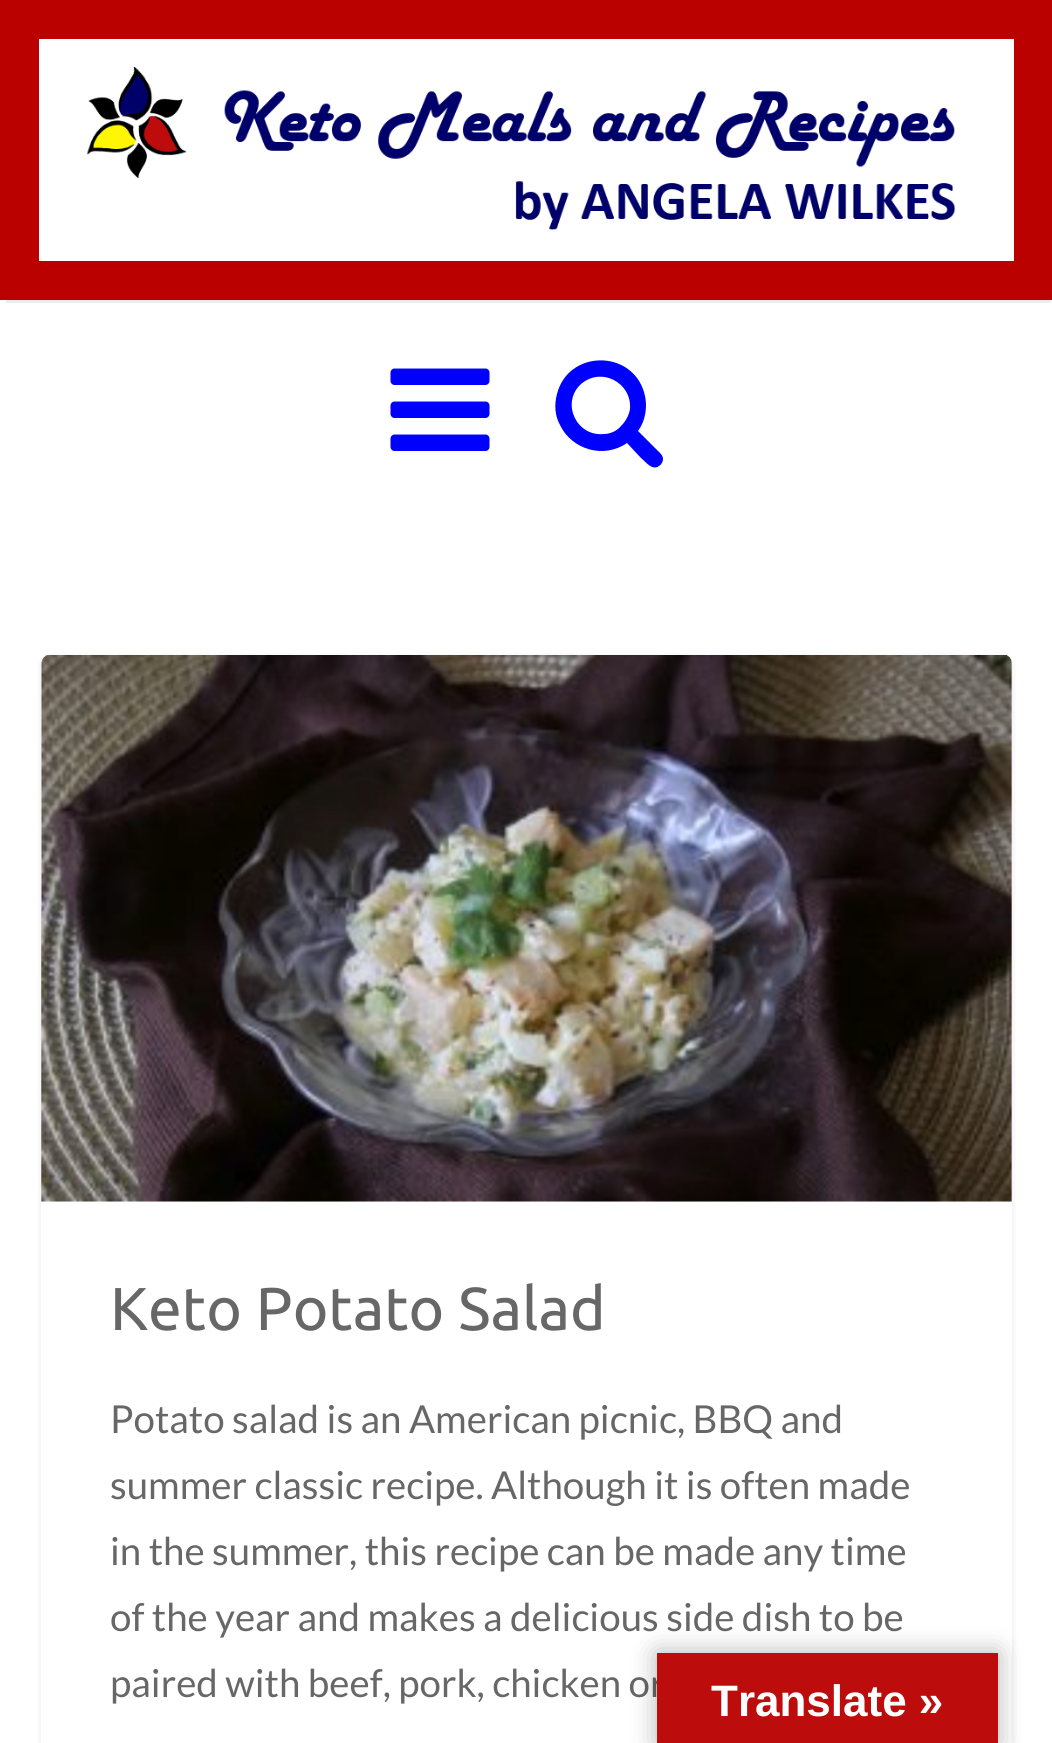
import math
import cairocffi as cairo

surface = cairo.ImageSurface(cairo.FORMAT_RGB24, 1052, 1743)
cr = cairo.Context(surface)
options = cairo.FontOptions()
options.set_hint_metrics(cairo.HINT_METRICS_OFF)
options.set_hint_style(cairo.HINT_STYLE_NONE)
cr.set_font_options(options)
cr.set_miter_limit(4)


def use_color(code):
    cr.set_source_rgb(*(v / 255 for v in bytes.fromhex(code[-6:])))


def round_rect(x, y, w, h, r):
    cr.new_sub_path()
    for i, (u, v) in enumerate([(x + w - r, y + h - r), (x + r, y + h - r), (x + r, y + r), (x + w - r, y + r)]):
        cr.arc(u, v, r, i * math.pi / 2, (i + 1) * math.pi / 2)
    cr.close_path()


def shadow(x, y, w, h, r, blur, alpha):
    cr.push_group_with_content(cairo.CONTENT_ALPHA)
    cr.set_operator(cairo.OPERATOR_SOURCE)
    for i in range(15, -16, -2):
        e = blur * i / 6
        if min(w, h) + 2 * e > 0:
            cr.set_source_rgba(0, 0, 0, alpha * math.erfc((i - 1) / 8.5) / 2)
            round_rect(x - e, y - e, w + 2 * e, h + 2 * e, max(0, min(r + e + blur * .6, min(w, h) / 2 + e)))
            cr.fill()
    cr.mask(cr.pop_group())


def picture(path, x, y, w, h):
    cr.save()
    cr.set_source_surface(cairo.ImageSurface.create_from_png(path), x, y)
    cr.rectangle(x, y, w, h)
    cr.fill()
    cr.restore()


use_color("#ffffff")
cr.paint()
cr.rectangle(19.5, 19.5, 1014, 261)
use_color("#bb0000")
cr.set_line_width(39)
cr.stroke()
picture("img1.png", 86, 66, 870, 164)
use_color("#eeeeee")
cr.rectangle(6, 300, 1045, 3)
cr.fill()
picture("img2.png", 390, 368, 100, 83)
use_color("#0000ff")
cr.new_path()
cr.move_to(621, 426)
cr.curve_to(626, 421, 629, 415, 630, 409)
cr.curve_to(632, 382, 600, 366, 580, 385)
cr.curve_to(561, 404, 577, 437, 604, 434)
cr.curve_to(610, 434, 617, 431, 621, 426)
cr.close_path()
cr.move_to(663, 459)
cr.curve_to(663, 462, 661, 465, 659, 466)
cr.curve_to(652, 471, 646, 462, 641, 458)
cr.line_to(627, 443)
cr.curve_to(604, 459, 572, 450, 560, 425)
cr.curve_to(555, 416, 554, 405, 557, 394)
cr.curve_to(568, 350, 631, 349, 644, 392)
cr.curve_to(648, 405, 646, 420, 638, 431)
cr.line_to(660, 453)
cr.curve_to(662, 455, 663, 457, 663, 459)
cr.close_path()
cr.fill()
use_color("#000000")
shadow(41, 657, 971, 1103, 8, 3, 0.1)
use_color("#ffffff")
round_rect(41, 655, 971, 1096, 8)
cr.fill()
picture("img3.png", 41, 655, 971, 547)
cr.select_font_face("Ubuntu")
cr.set_font_size(60.5)
use_color("#676767")
cr.move_to(110, 1330)
cr.show_text("Keto Potato Salad")
cr.select_font_face("Lato")
cr.set_font_size(38.5)
cr.move_to(110, 1433)
cr.show_text("Potato salad is an American picnic, BBQ and")
cr.move_to(110, 1499)
cr.show_text("summer classic recipe. Although it is often made")
cr.move_to(110, 1565)
cr.show_text("in the summer, this recipe can be made any time")
cr.move_to(110, 1631)
cr.show_text("of the year and makes a delicious side dish to be")
cr.move_to(110, 1697)
cr.show_text("paired with beef, pork, chicken or")
use_color("#000000")
shadow(657, 1653, 341, 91, 0, 12.5, 0.3)
use_color("#bd0c0c")
cr.rectangle(657, 1653, 341, 90)
cr.fill()
cr.select_font_face("Liberation Sans", cairo.FONT_SLANT_NORMAL, cairo.FONT_WEIGHT_BOLD)
cr.set_font_size(44)
use_color("#ffffff")
cr.move_to(711, 1716)
cr.show_text("Translate »")
surface.write_to_png("result.png")
